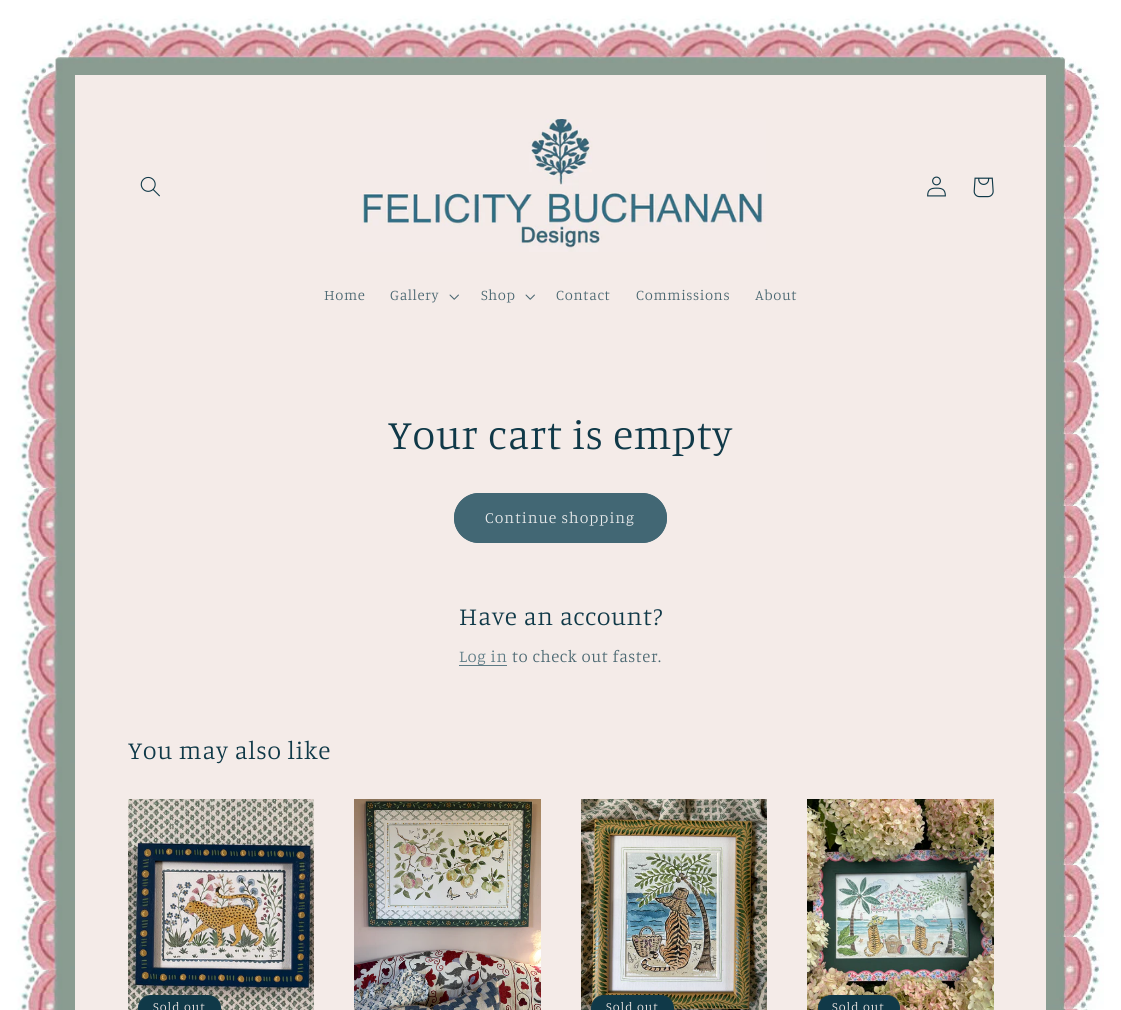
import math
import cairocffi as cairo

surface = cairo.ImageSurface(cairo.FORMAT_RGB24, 1121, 1010)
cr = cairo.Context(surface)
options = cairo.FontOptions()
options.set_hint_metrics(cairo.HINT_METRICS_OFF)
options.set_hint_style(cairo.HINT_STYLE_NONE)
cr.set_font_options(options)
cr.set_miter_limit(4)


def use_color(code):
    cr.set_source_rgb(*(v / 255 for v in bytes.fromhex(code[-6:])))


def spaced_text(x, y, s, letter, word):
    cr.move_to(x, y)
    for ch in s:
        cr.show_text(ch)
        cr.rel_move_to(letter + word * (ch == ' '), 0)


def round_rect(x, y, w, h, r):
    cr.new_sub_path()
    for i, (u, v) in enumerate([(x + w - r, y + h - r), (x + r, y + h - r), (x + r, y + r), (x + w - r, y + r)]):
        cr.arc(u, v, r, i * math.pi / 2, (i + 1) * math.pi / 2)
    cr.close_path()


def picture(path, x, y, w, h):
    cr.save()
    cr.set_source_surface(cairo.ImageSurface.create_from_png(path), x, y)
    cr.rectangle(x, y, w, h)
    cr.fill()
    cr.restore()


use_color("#f4ebe8")
cr.paint()
picture("img1.png", 0, 0, 1121, 1010)
picture("img2.png", 140, 176, 20, 21)
picture("img3.png", 360, 119, 406, 133)
picture("img4.png", 927, 176, 19, 21)
picture("img5.png", 973, 177, 21, 21)
cr.select_font_face("Manuale Light")
cr.set_font_size(14.75)
use_color("#496670")
spaced_text(324, 300, "Home", 0.6, 0)
spaced_text(390, 300, "Gallery", 0.6, 0)
picture("img6.png", 449, 294, 10, 6)
spaced_text(481, 300, "Shop", 0.6, 0)
picture("img6.png", 525, 294, 10, 6)
spaced_text(556, 300, "Contact", 0.6, 0)
spaced_text(636, 300, "Commissions", 0.6, 0)
spaced_text(755, 300, "About", 0.6, 0)
cr.set_font_size(42)
use_color("#103948")
spaced_text(388, 449, "Your cart is empty", 0.6, 0)
use_color("#426774")
round_rect(454, 493, 213, 50, 25)
cr.fill()
round_rect(454.5, 493.5, 212, 49, 24.5)
cr.set_line_width(1)
cr.stroke()
cr.set_font_size(15.75)
use_color("#ebeced")
spaced_text(485, 523, "Continue shopping", 1, 0)
cr.set_font_size(25.25)
use_color("#103948")
spaced_text(459, 625, "Have an account?", 0.6, 0)
cr.set_font_size(16.75)
use_color("#5d7b85")
spaced_text(459, 662, "Log in", 0.6, 0)
cr.rectangle(459, 665, 48, 1)
cr.fill()
use_color("#496670")
spaced_text(512, 662, "to check out faster.", 0.6, 0)
cr.set_font_size(25.25)
use_color("#103948")
spaced_text(128, 759, "You may also like", 0.6, 0)
picture("img7.png", 128, 799, 186, 211)
round_rect(138.5, 995.5, 82, 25, 12.5)
cr.fill_preserve()
cr.stroke()
cr.set_font_size(12.5)
use_color("#f4ebe8")
spaced_text(153, 1011, "Sold out", 1, 0)
picture("img8.png", 354, 799, 187, 211)
picture("img9.png", 581, 799, 186, 211)
use_color("#103948")
round_rect(591.5, 995.5, 82, 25, 12.5)
cr.fill_preserve()
cr.stroke()
use_color("#f4ebe8")
spaced_text(606, 1011, "Sold out", 1, 0)
picture("img10.png", 807, 799, 187, 211)
use_color("#103948")
round_rect(818.5, 995.5, 81, 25, 12.5)
cr.fill_preserve()
cr.stroke()
use_color("#f4ebe8")
spaced_text(832, 1011, "Sold out", 1, 0)
surface.write_to_png("result.png")
